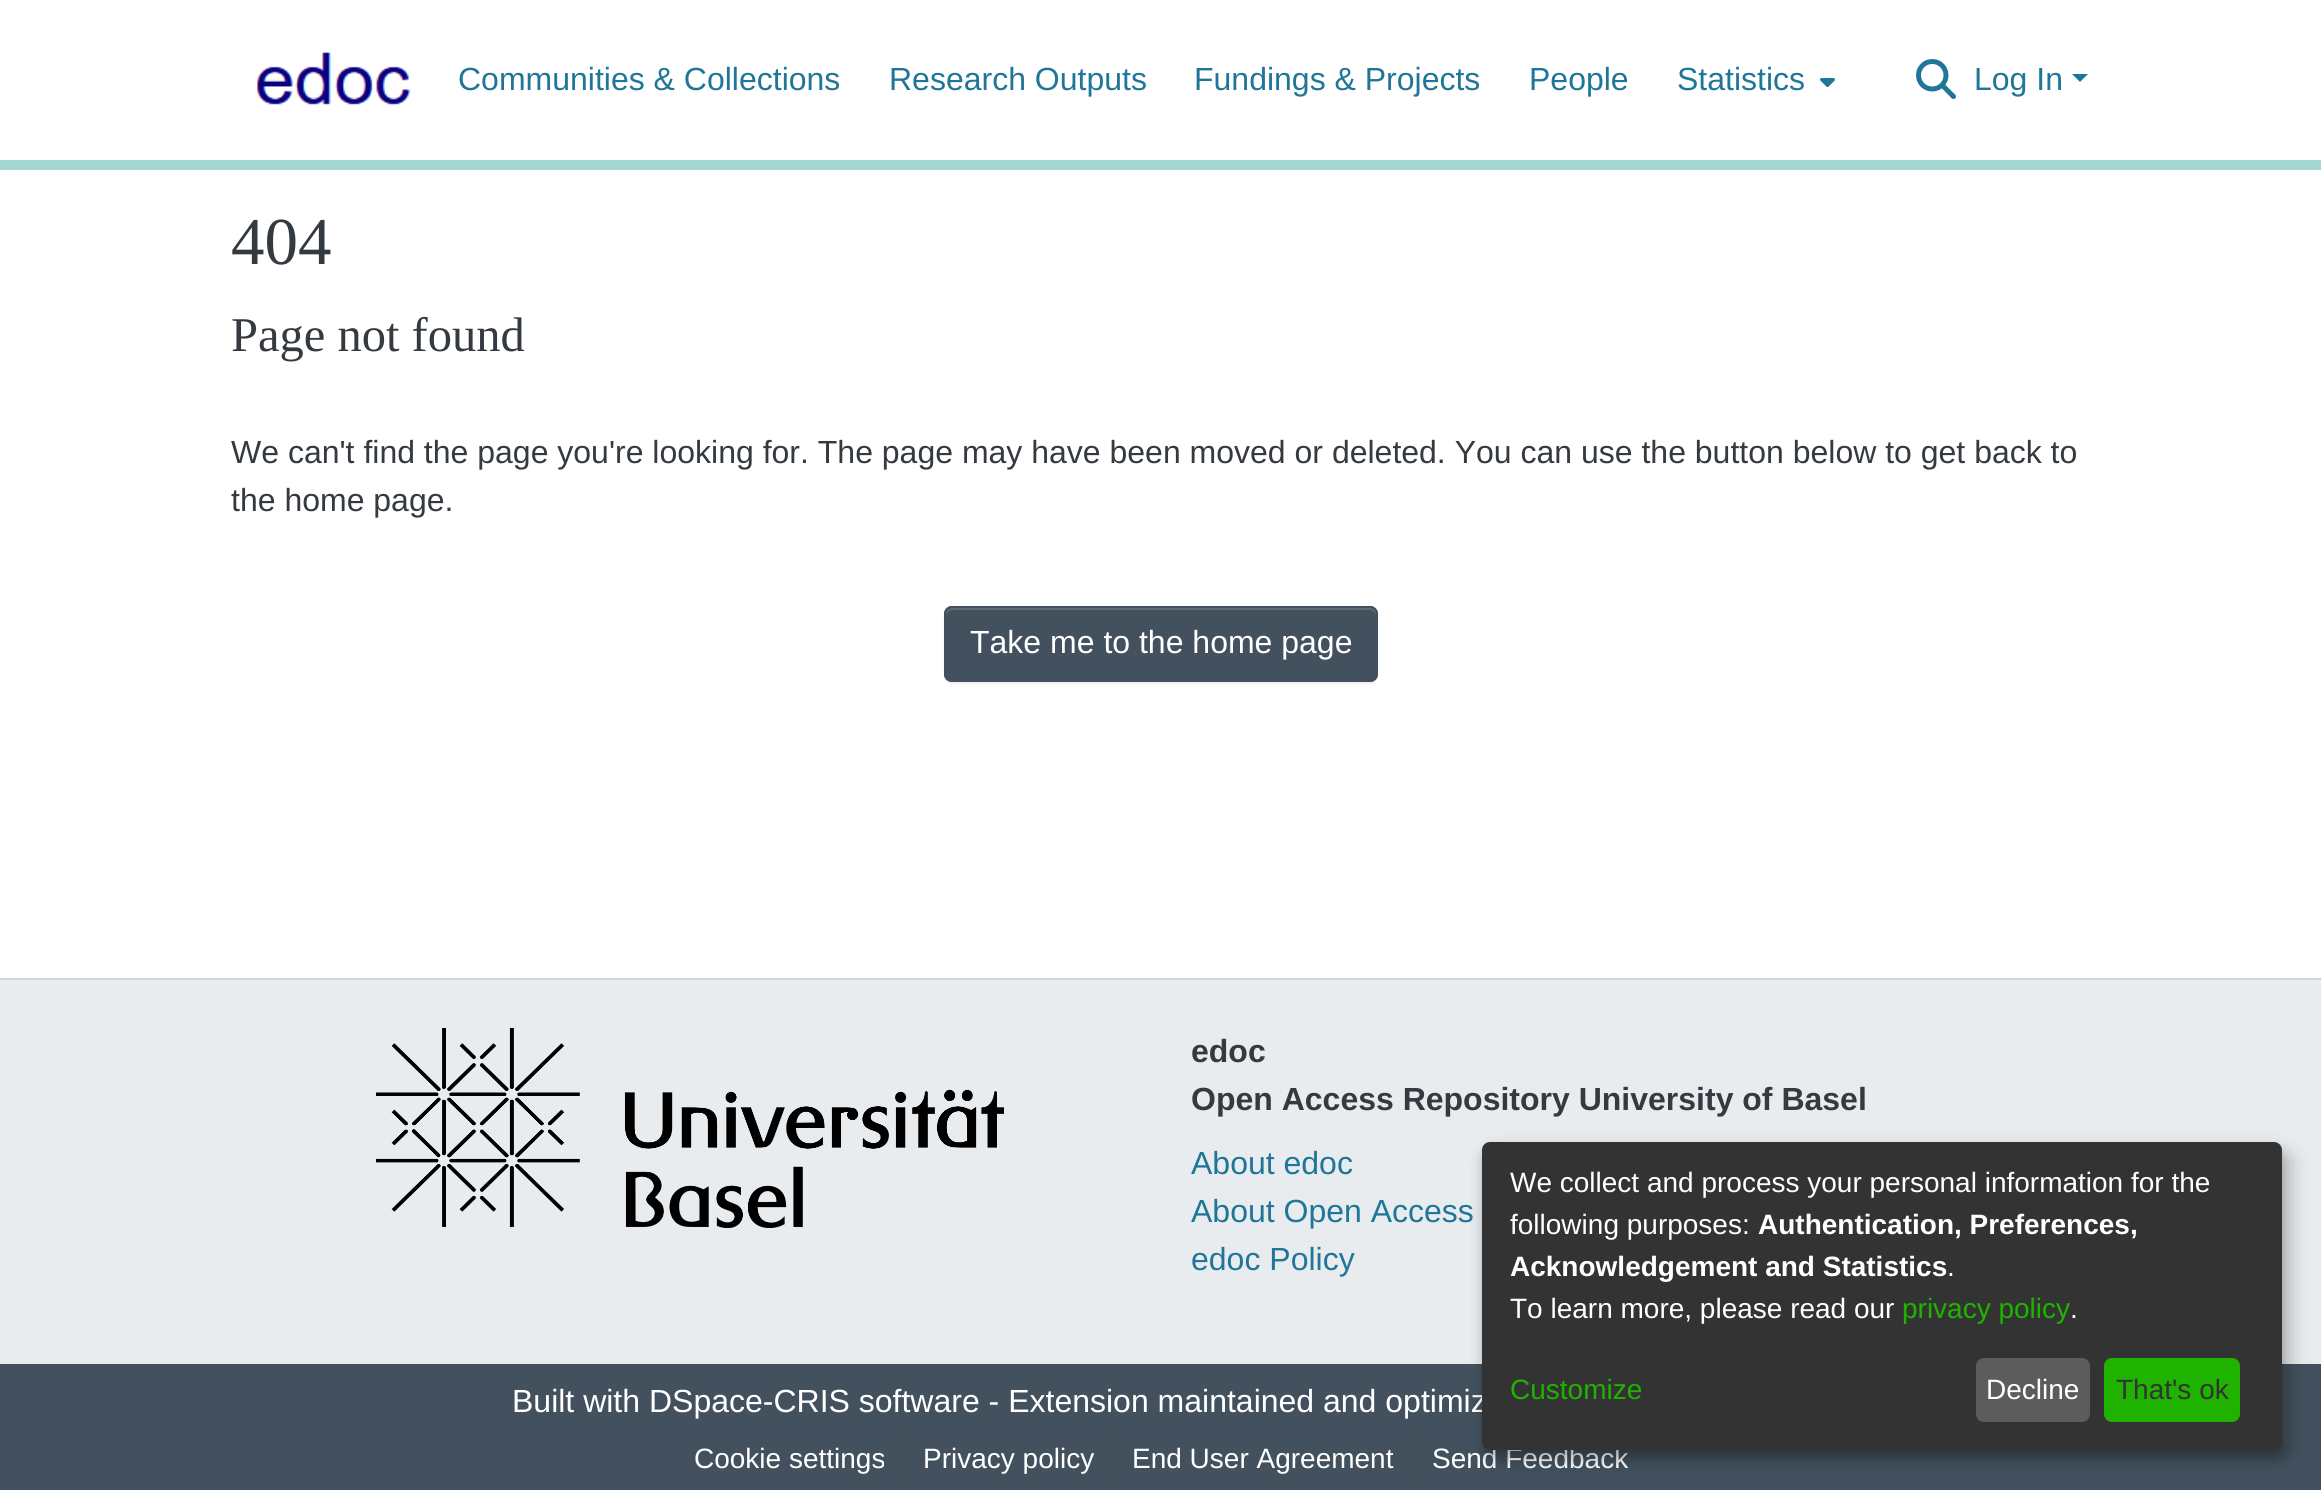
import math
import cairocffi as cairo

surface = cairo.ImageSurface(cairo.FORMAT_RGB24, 2321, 1490)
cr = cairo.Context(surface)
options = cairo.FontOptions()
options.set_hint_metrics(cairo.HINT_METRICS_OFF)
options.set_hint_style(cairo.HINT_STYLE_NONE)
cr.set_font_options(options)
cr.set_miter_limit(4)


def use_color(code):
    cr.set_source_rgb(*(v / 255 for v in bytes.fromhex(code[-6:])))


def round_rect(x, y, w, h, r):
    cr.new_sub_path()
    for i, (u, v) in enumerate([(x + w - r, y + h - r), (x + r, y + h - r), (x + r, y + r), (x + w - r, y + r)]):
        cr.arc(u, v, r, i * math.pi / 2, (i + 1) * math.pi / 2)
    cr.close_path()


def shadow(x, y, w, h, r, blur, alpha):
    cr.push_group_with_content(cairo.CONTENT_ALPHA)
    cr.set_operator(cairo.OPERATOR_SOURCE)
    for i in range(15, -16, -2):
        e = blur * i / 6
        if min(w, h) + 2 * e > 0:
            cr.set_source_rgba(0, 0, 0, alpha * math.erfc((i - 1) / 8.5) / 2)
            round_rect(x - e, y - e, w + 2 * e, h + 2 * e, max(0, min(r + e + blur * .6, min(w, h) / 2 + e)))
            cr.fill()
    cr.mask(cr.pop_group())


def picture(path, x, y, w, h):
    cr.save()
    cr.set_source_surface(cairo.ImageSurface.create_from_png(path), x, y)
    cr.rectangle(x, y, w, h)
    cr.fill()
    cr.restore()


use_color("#ffffff")
cr.paint()
use_color("#a5d7d2")
cr.rectangle(0, 160, 2321, 10)
cr.fill()
picture("img1.png", 255, 52, 156, 53)
cr.select_font_face("Liberation Sans")
cr.set_font_size(32)
use_color("#207698")
cr.move_to(458, 90)
cr.show_text("Communities & Collections")
cr.move_to(889, 90)
cr.show_text("Research Outputs")
cr.move_to(1194, 90)
cr.show_text("Fundings & Projects")
cr.move_to(1529, 90)
cr.show_text("People")
cr.move_to(1677, 90)
cr.show_text("Statistics")
picture("img2.png", 1820, 78, 15, 9)
picture("img3.png", 1916, 59, 40, 40)
cr.move_to(1974, 90)
cr.show_text("Log In")
cr.new_path()
cr.move_to(2072, 74)
cr.line_to(2088, 74)
cr.line_to(2080, 82)
cr.close_path()
cr.fill()
cr.select_font_face("Liberation Serif")
cr.set_font_size(67)
use_color("#343a40")
cr.move_to(231, 264)
cr.show_text("404")
cr.set_font_size(48.5)
cr.move_to(231, 351)
cr.show_text("Page not found")
cr.select_font_face("Liberation Sans")
cr.set_font_size(32)
cr.move_to(231, 463)
cr.show_text("We can't find the page you're looking for. The page may have been moved or deleted. You can use the button below to get back to")
cr.move_to(231, 511)
cr.show_text("the home page.")
use_color("#000000")
shadow(944, 608, 434, 76, 8, 1, 0.07)
use_color("#43515f")
round_rect(944, 606, 434, 76, 8)
cr.fill()
use_color("#5f6b77")
cr.new_path()
cr.move_to(952, 610)
cr.line_to(1370, 610)
cr.curve_to(1373, 610, 1376, 613, 1376, 616)
cr.line_to(1376, 614)
cr.curve_to(1376, 611, 1373, 608, 1370, 608)
cr.line_to(952, 608)
cr.curve_to(949, 608, 946, 611, 946, 614)
cr.line_to(946, 616)
cr.curve_to(946, 613, 949, 610, 952, 610)
cr.close_path()
cr.fill()
round_rect(945, 607, 432, 74, 7)
use_color("#43515f")
cr.stroke()
use_color("#ffffff")
cr.move_to(970, 653)
cr.show_text("Take me to the home page")
use_color("#43515f")
cr.rectangle(0, 1364, 2321, 126)
cr.fill()
use_color("#ced4da")
cr.rectangle(0, 978, 2321, 2)
cr.fill()
use_color("#e9ecef")
cr.rectangle(0, 980, 2321, 384)
cr.fill()
picture("img4.png", 376, 1028, 628, 200)
cr.select_font_face("Liberation Sans", cairo.FONT_SLANT_NORMAL, cairo.FONT_WEIGHT_BOLD)
use_color("#343a40")
cr.move_to(1191, 1062)
cr.show_text("edoc")
cr.move_to(1191, 1110)
cr.show_text("Open Access Repository University of Basel")
cr.select_font_face("Liberation Sans")
use_color("#207698")
cr.move_to(1191, 1174)
cr.show_text("About edoc")
cr.move_to(1191, 1222)
cr.show_text("About Open Access")
cr.move_to(1191, 1270)
cr.show_text("edoc Policy")
use_color("#ffffff")
cr.move_to(512, 1412)
cr.show_text("Built with DSpace-CRIS software - Extension maintained and optimiz")
cr.set_font_size(28)
cr.move_to(694, 1468)
cr.show_text("Cookie settings")
use_color("#495057")
cr.rectangle(904, 1436, 2, 46)
cr.fill()
use_color("#ffffff")
cr.move_to(923, 1468)
cr.show_text("Privacy policy")
use_color("#495057")
cr.rectangle(1112, 1436, 2, 46)
cr.fill()
use_color("#ffffff")
cr.move_to(1132, 1468)
cr.show_text("End User Agreement")
use_color("#495057")
cr.rectangle(1412, 1436, 2, 46)
cr.fill()
use_color("#ffffff")
cr.move_to(1432, 1468)
cr.show_text("Send Feedback")
use_color("#000000")
shadow(1492, 1152, 800, 308, 8, 10, 0.19)
shadow(1482, 1150, 800, 308, 8, 6, 0.2)
use_color("#333333")
round_rect(1482, 1142, 800, 308, 8)
cr.fill()
use_color("#ffffff")
cr.move_to(1510, 1192)
cr.show_text("We collect and process your personal information for the")
cr.move_to(1510, 1234)
cr.show_text("following purposes:")
cr.select_font_face("Liberation Sans", cairo.FONT_SLANT_NORMAL, cairo.FONT_WEIGHT_BOLD)
cr.move_to(1758, 1234)
cr.show_text("Authentication, Preferences,")
cr.move_to(1510, 1276)
cr.show_text("Acknowledgement and Statistics")
cr.select_font_face("Liberation Sans")
cr.move_to(1947, 1276)
cr.show_text(".")
cr.move_to(1510, 1318)
cr.show_text("To learn more, please read our")
use_color("#1fb300")
cr.move_to(1902, 1318)
cr.show_text("privacy policy")
use_color("#ffffff")
cr.move_to(2070, 1318)
cr.show_text(".")
use_color("#1fb300")
cr.move_to(1510, 1399)
cr.show_text("Customize")
use_color("#5c5c5c")
round_rect(1976, 1358, 114, 64, 8)
cr.fill()
use_color("#ffffff")
cr.move_to(1986, 1399)
cr.show_text("Decline")
use_color("#1fb300")
round_rect(2104, 1358, 136, 64, 8)
cr.fill()
use_color("#333333")
cr.move_to(2116, 1399)
cr.show_text("That's ok")
surface.write_to_png("result.png")
